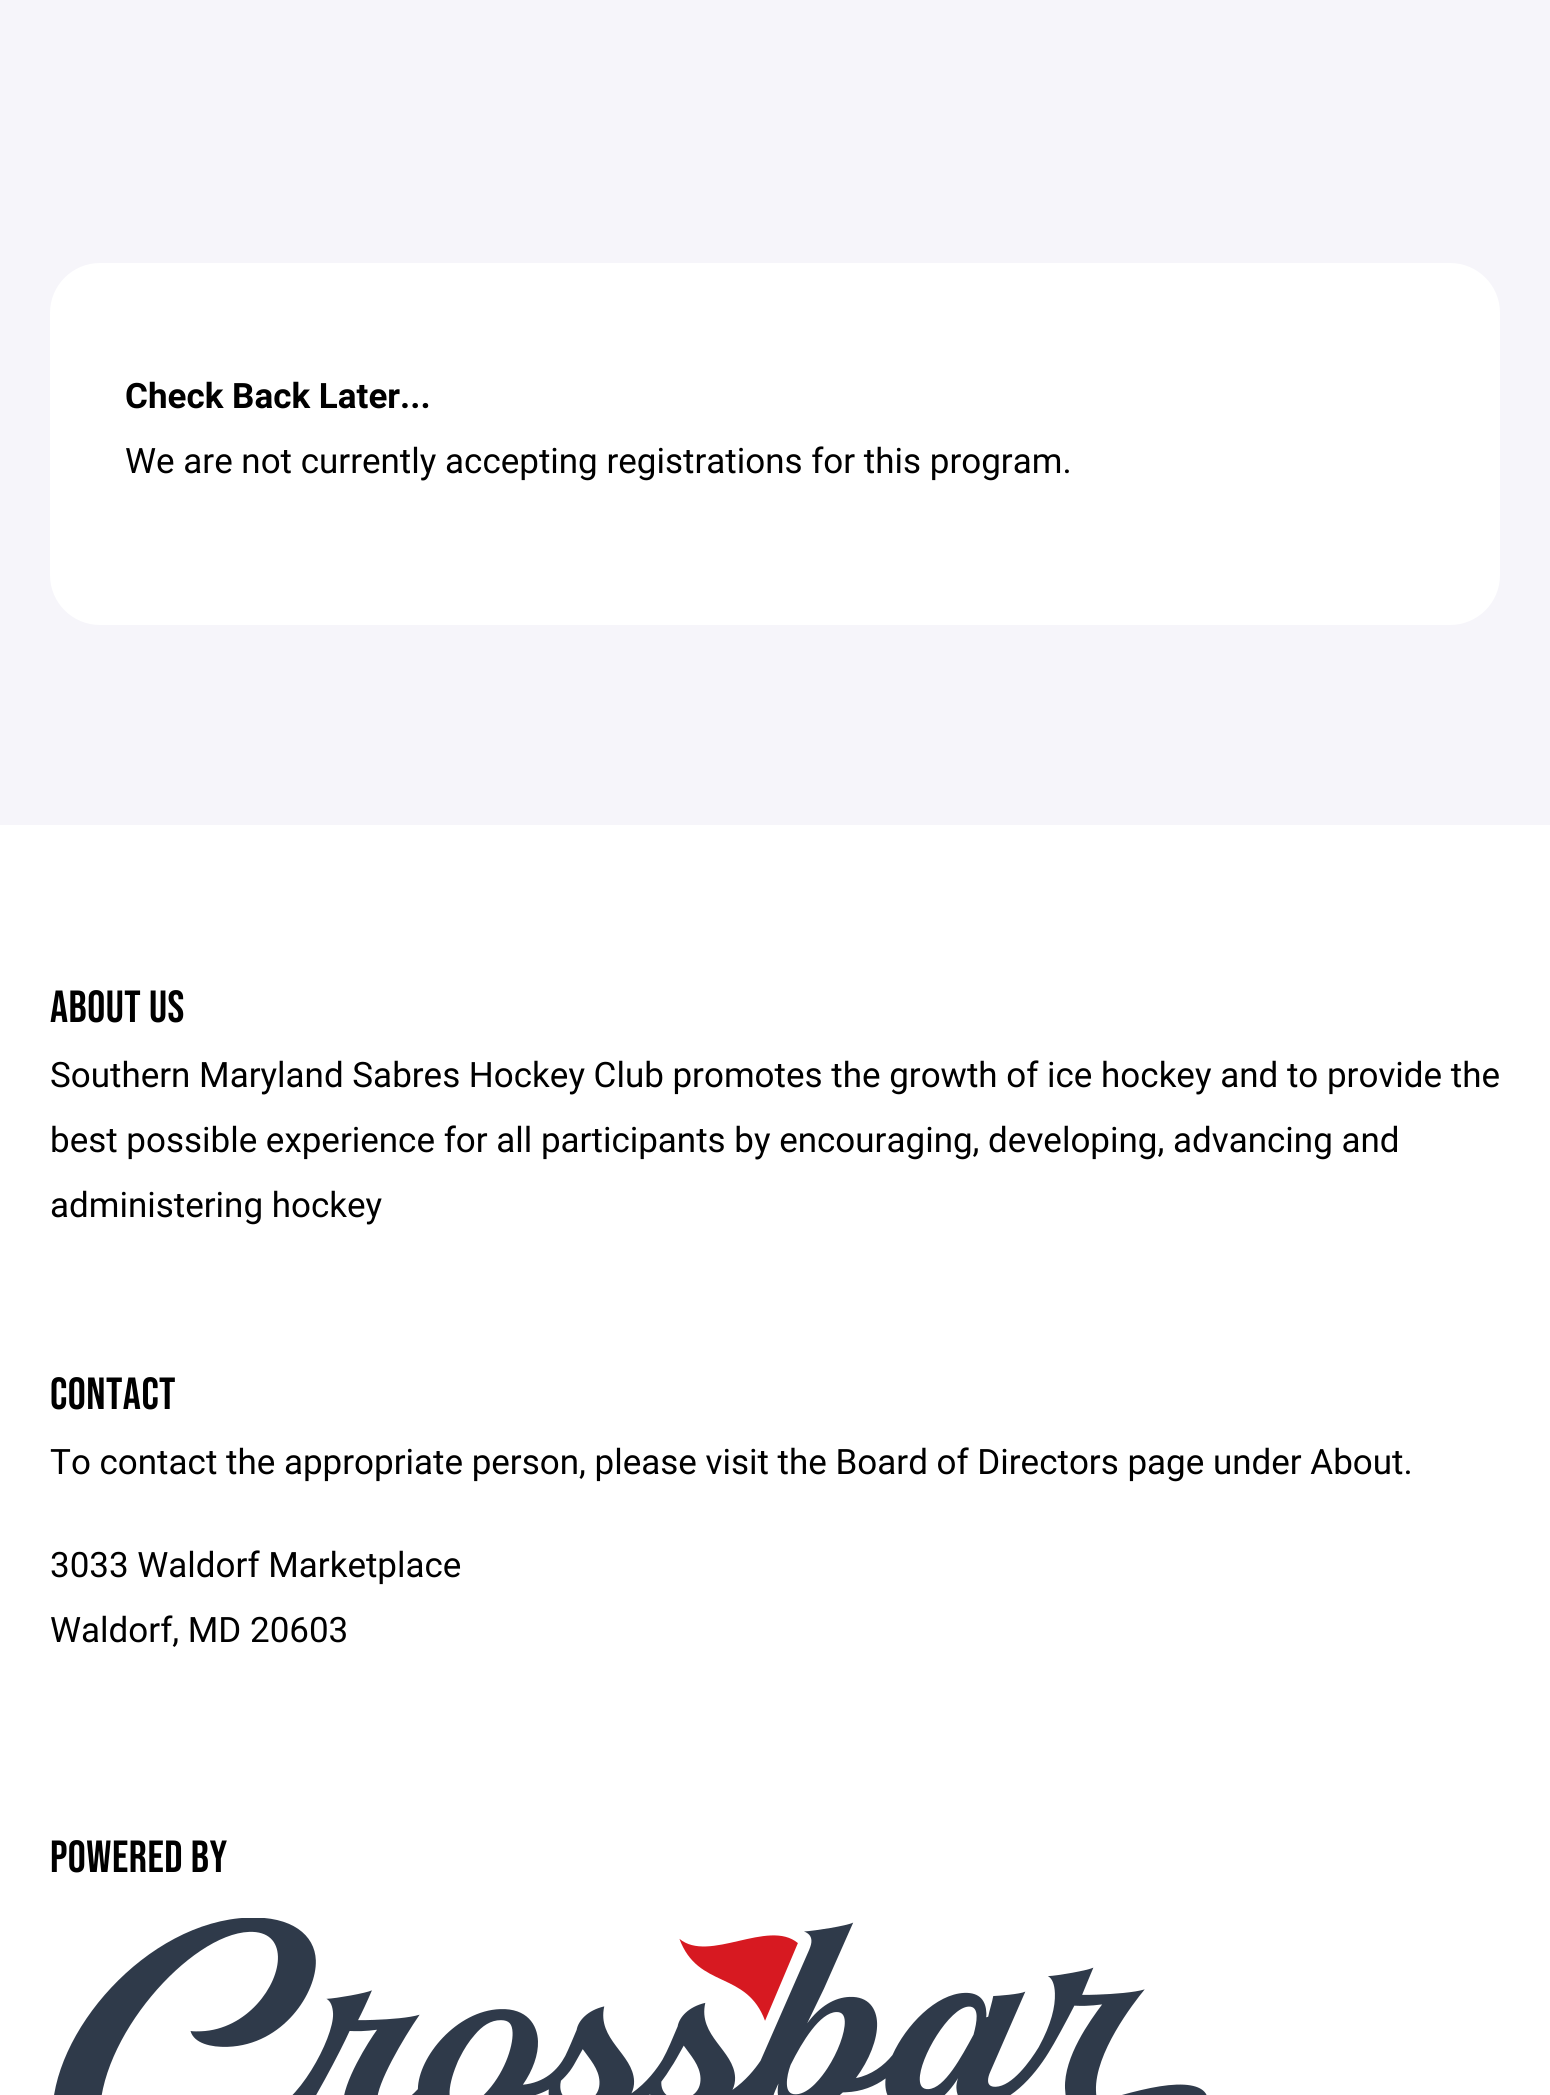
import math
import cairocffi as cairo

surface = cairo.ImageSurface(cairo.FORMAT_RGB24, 1550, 2095)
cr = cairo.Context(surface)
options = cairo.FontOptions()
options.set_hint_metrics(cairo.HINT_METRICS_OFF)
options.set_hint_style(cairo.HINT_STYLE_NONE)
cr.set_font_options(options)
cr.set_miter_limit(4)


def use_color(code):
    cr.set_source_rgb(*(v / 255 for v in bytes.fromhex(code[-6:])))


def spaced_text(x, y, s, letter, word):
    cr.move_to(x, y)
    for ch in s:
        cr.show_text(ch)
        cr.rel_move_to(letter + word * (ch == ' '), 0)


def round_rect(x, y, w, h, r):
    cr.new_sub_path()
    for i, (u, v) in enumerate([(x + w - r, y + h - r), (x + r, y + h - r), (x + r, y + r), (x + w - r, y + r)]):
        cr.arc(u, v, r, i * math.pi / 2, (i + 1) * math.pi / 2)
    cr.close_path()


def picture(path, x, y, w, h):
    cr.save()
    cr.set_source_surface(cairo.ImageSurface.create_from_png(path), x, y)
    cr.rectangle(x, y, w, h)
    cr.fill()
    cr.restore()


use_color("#f6f5fa")
cr.paint()
use_color("#ffffff")
round_rect(50, 263, 1450, 362, 50)
cr.fill()
cr.select_font_face("Roboto", cairo.FONT_SLANT_NORMAL, cairo.FONT_WEIGHT_BOLD)
cr.set_font_size(35)
use_color("#000000")
cr.move_to(125, 408)
cr.show_text("Check Back Later...")
cr.select_font_face("Roboto")
cr.move_to(125, 473)
cr.show_text("We are not currently accepting registrations for this program.")
use_color("#ffffff")
cr.rectangle(0, 825, 1550, 1270)
cr.fill()
cr.select_font_face("Bebas Neue")
cr.set_font_size(45)
use_color("#000000")
spaced_text(50, 1022, "ABOUT US", 0.5, 0)
cr.select_font_face("Roboto")
cr.set_font_size(35)
cr.move_to(50, 1087)
cr.show_text("Southern Maryland Sabres Hockey Club promotes the growth of ice hockey and to provide the")
cr.move_to(50, 1152)
cr.show_text("best possible experience for all participants by encouraging, developing, advancing and")
cr.move_to(50, 1217)
cr.show_text("administering hockey")
cr.select_font_face("Bebas Neue")
cr.set_font_size(45)
spaced_text(50, 1409, "CONTACT", 0.5, 0)
cr.select_font_face("Roboto")
cr.set_font_size(35)
cr.move_to(50, 1474)
cr.show_text("To contact the appropriate person, please visit the Board of Directors page under About.")
cr.move_to(50, 1577)
cr.show_text("3033 Waldorf Marketplace")
cr.move_to(50, 1642)
cr.show_text("Waldorf, MD 20603")
cr.select_font_face("Bebas Neue")
cr.set_font_size(45)
spaced_text(50, 1872, "POWERED BY", 0.5, 0)
picture("img1.png", 54, 1918, 1153, 177)
surface.write_to_png("result.png")
